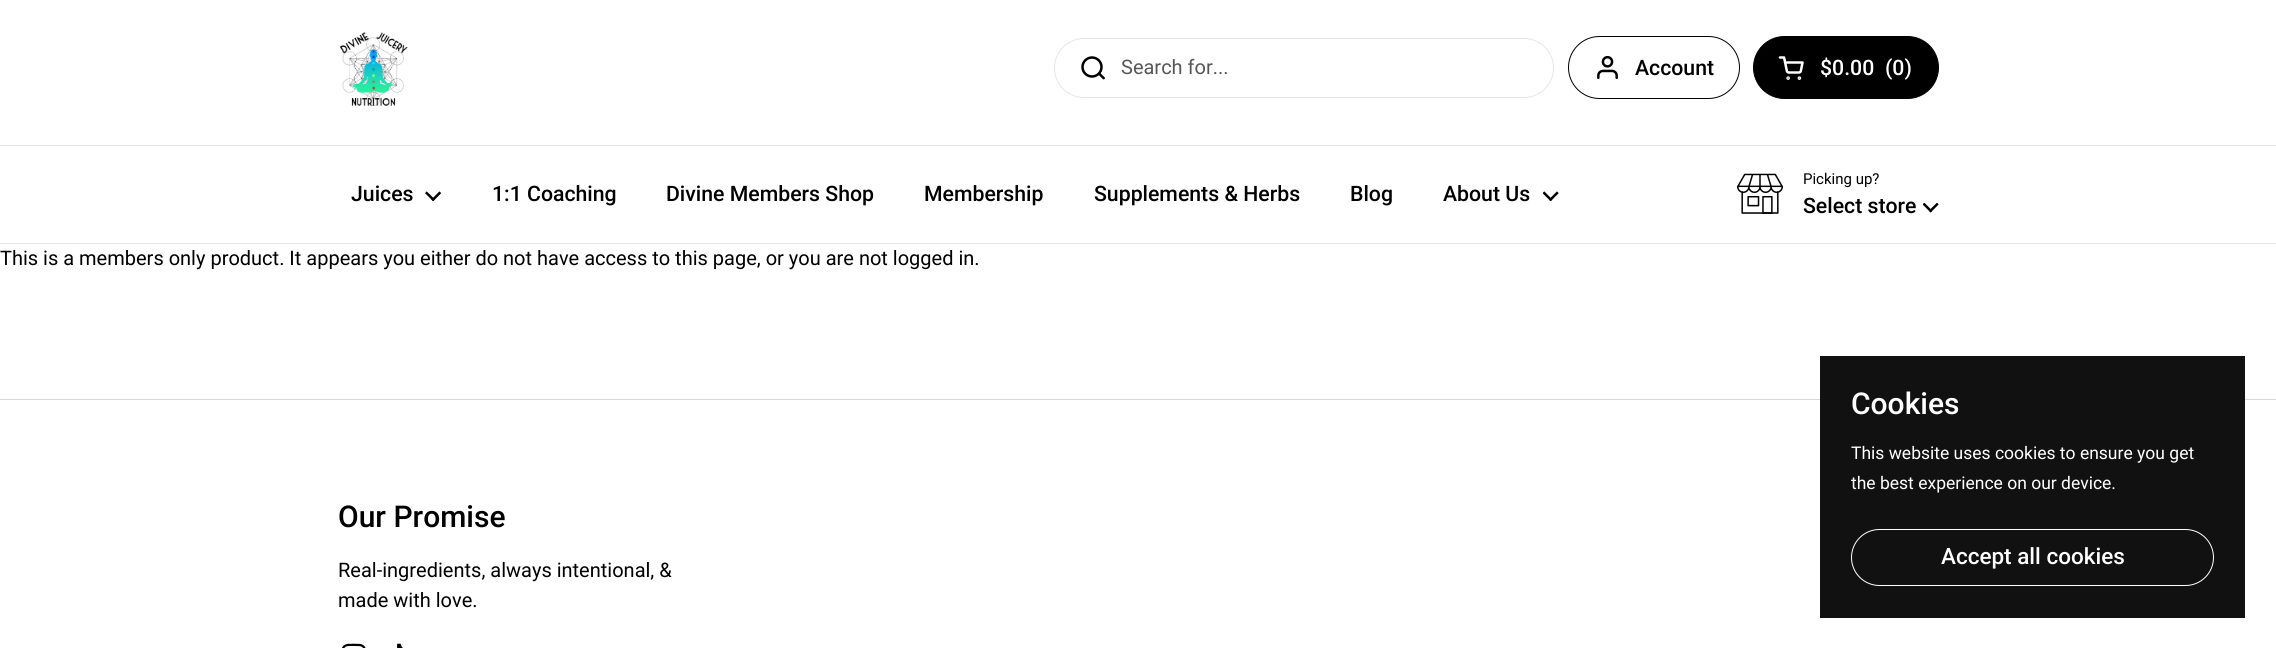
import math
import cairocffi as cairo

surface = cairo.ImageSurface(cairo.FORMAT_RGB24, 2276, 648)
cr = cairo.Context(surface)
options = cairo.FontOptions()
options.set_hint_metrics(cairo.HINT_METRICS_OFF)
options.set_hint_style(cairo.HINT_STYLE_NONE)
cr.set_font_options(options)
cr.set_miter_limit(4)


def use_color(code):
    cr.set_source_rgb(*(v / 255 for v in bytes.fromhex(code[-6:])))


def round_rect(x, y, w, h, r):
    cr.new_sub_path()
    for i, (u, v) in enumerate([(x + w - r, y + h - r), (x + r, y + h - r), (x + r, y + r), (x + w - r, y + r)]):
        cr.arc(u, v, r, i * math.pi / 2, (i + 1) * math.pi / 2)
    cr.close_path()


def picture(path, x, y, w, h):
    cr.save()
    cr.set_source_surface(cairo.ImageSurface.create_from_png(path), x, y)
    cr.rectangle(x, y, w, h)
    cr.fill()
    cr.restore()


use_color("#ffffff")
cr.paint()
use_color("#e6e6e6")
cr.rectangle(0, 145, 2276, 1)
cr.fill()
picture("img1.png", 339, 32, 69, 74)
round_rect(1054.5, 38.5, 499, 59, 29.5)
cr.set_line_width(1)
cr.stroke()
picture("img2.png", 1081, 56, 24, 24)
cr.select_font_face("Roboto")
cr.set_font_size(20)
use_color("#575757")
cr.move_to(1121, 74)
cr.show_text("Search for...")
round_rect(1568.5, 36.5, 171, 62, 31)
use_color("#000000")
cr.stroke()
picture("img3.png", 1597, 55, 21, 24)
cr.select_font_face("Roboto Medium")
cr.set_font_size(21.25)
cr.move_to(1635, 75)
cr.show_text("Account")
round_rect(1753.5, 36.5, 185, 62, 31)
cr.fill_preserve()
cr.stroke()
picture("img4.png", 1778, 56, 26, 24)
use_color("#ffffff")
cr.move_to(1820, 75)
cr.show_text("$0.00")
cr.move_to(1885, 75)
cr.show_text("(0)")
use_color("#e6e6e6")
cr.rectangle(0, 243, 2276, 1)
cr.fill()
use_color("#000000")
cr.move_to(351, 201)
cr.show_text("Juices")
picture("img5.png", 425, 191, 16, 10)
cr.move_to(492, 201)
cr.show_text("1:1 Coaching")
cr.move_to(666, 201)
cr.show_text("Divine Members Shop")
cr.move_to(924, 201)
cr.show_text("Membership")
cr.move_to(1094, 201)
cr.show_text("Supplements & Herbs")
cr.move_to(1350, 201)
cr.show_text("Blog")
cr.move_to(1443, 201)
cr.show_text("About Us")
picture("img6.png", 1543, 191, 16, 10)
picture("img7.png", 1737, 173, 46, 41)
cr.select_font_face("Roboto")
cr.set_font_size(15)
cr.move_to(1803, 184)
cr.show_text("Picking up?")
cr.select_font_face("Roboto Medium")
cr.set_font_size(21.25)
cr.move_to(1803, 213)
cr.show_text("Select store")
picture("img8.png", 1923, 203, 16, 10)
cr.select_font_face("Roboto")
cr.set_font_size(20)
cr.move_to(0, 265)
cr.show_text("This is a members only product. It appears you either do not have access to this page, or you are not logged in.")
use_color("#d9d9d9")
cr.rectangle(0, 399, 2276, 1)
cr.fill()
cr.select_font_face("Roboto Medium")
cr.set_font_size(30)
use_color("#000000")
cr.move_to(338, 527)
cr.show_text("Our Promise")
cr.select_font_face("Roboto")
cr.set_font_size(20)
cr.move_to(338, 577)
cr.show_text("Real-ingredients, always intentional, &")
cr.move_to(338, 607)
cr.show_text("made with love.")
picture("img9.png", 342, 643, 24, 5)
picture("img10.png", 397, 643, 6, 5)
use_color("#111111")
cr.rectangle(1820, 356, 425, 262)
cr.fill()
cr.select_font_face("Roboto Medium")
cr.set_font_size(30)
use_color("#ffffff")
cr.move_to(1851, 414)
cr.show_text("Cookies")
cr.select_font_face("Roboto")
cr.set_font_size(17.5)
cr.move_to(1851, 459)
cr.show_text("This website uses cookies to ensure you get")
cr.move_to(1851, 489)
cr.show_text("the best experience on our device.")
round_rect(1851.5, 529.5, 362, 56, 28)
cr.stroke()
cr.select_font_face("Roboto Medium")
cr.set_font_size(22.5)
cr.move_to(1941, 564)
cr.show_text("Accept all cookies")
surface.write_to_png("result.png")
